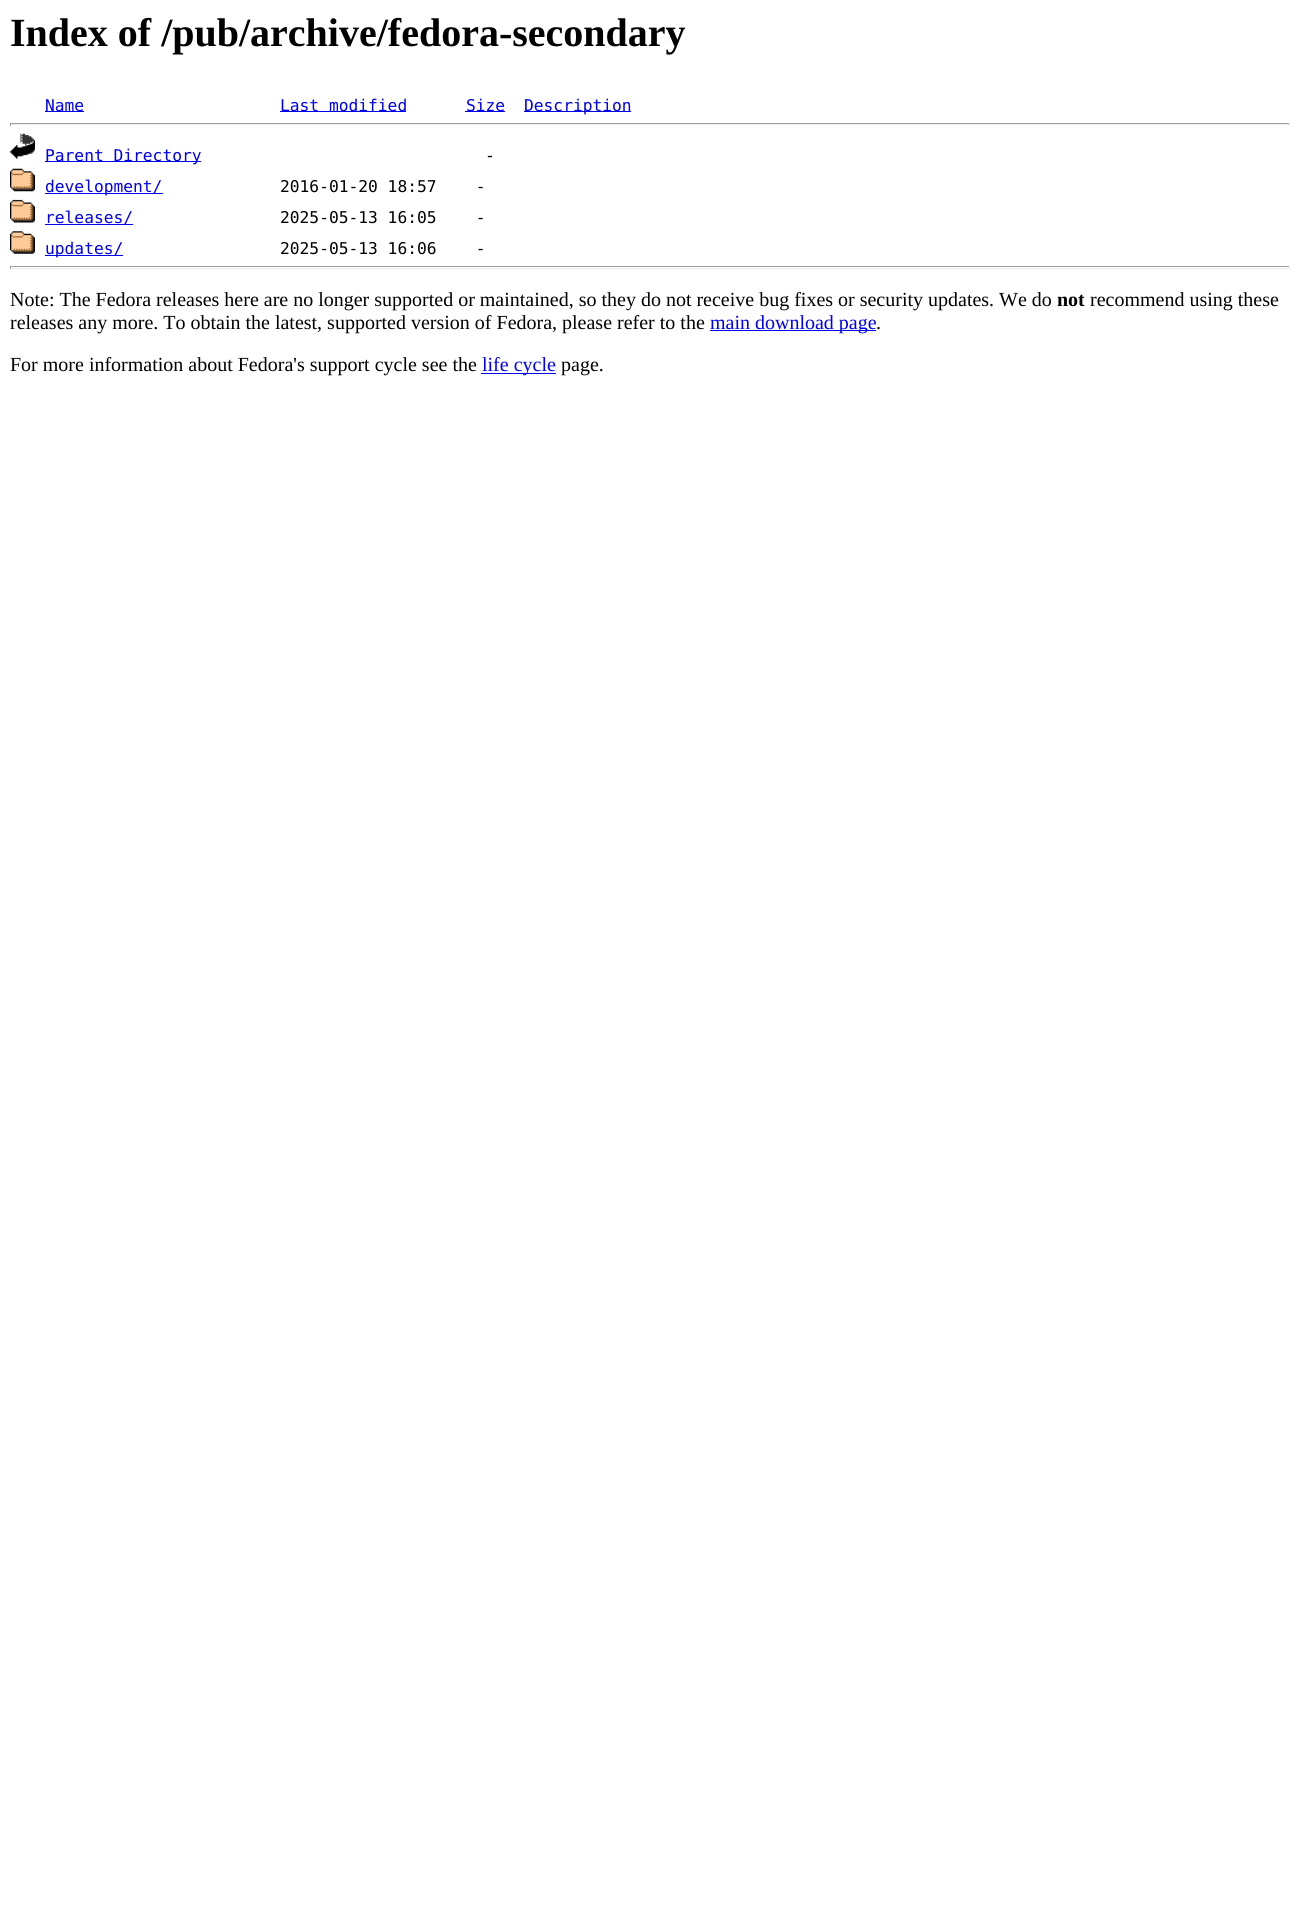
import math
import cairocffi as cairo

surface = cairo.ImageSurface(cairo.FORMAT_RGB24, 1300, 1932)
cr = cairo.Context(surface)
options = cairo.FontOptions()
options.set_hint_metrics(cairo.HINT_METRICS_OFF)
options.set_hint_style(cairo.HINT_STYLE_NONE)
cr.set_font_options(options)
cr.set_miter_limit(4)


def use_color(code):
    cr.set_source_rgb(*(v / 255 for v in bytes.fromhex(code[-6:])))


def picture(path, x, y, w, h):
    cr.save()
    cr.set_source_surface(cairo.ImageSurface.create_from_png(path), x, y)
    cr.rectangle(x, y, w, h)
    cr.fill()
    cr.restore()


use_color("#ffffff")
cr.paint()
cr.select_font_face("Liberation Serif", cairo.FONT_SLANT_NORMAL, cairo.FONT_WEIGHT_BOLD)
cr.set_font_size(40)
use_color("#000000")
cr.move_to(10, 46)
cr.show_text("Index of /pub/archive/fedora-secondary")
use_color("#0000ee")
cr.rectangle(45, 111, 39, 1)
cr.fill()
cr.select_font_face("DejaVu Sans Mono")
cr.set_font_size(16.25)
cr.move_to(45, 111)
cr.show_text("Name")
cr.rectangle(280, 111, 126, 1)
cr.fill()
cr.move_to(280, 111)
cr.show_text("Last modified")
cr.rectangle(465, 111, 40, 1)
cr.fill()
cr.move_to(466, 111)
cr.show_text("Size")
cr.rectangle(524, 111, 107, 1)
cr.fill()
cr.move_to(524, 111)
cr.show_text("Description")
use_color("#9f9f9f")
cr.rectangle(10, 123, 1280, 1)
cr.fill()
use_color("#eeeeee")
cr.rectangle(1289, 123, 1, 3)
cr.fill()
cr.rectangle(10, 124, 1280, 1)
cr.fill()
use_color("#9f9f9f")
cr.rectangle(10, 123, 1, 3)
cr.fill()
picture("img1.png", 10, 133, 25, 26)
use_color("#0000ee")
cr.rectangle(45, 161, 156, 1)
cr.fill()
cr.move_to(45, 161)
cr.show_text("Parent Directory")
use_color("#000000")
cr.move_to(485, 161)
cr.show_text("-")
picture("img2.png", 10, 168, 25, 24)
use_color("#0000ee")
cr.rectangle(45, 193, 118, 1)
cr.fill()
cr.move_to(45, 192)
cr.show_text("development/")
use_color("#000000")
cr.move_to(280, 192)
cr.show_text("2016-01-20 18:57    -")
picture("img3.png", 10, 199, 25, 24)
use_color("#0000ee")
cr.rectangle(45, 224, 88, 1)
cr.fill()
cr.move_to(45, 223)
cr.show_text("releases/")
use_color("#000000")
cr.move_to(280, 223)
cr.show_text("2025-05-13 16:05    -")
picture("img4.png", 10, 231, 25, 23)
use_color("#0000ee")
cr.rectangle(45, 255, 78, 1)
cr.fill()
cr.move_to(45, 254)
cr.show_text("updates/")
use_color("#000000")
cr.move_to(280, 254)
cr.show_text("2025-05-13 16:06    -")
use_color("#9f9f9f")
cr.rectangle(10, 266, 1280, 1)
cr.fill()
use_color("#eeeeee")
cr.rectangle(1289, 266, 1, 3)
cr.fill()
cr.rectangle(10, 268, 1280, 1)
cr.fill()
use_color("#9f9f9f")
cr.rectangle(10, 266, 1, 3)
cr.fill()
cr.select_font_face("Liberation Serif")
cr.set_font_size(20)
use_color("#000000")
cr.move_to(10, 306)
cr.show_text("Note: The Fedora releases here are no longer supported or maintained, so they do not receive bug fixes or security updates. We do")
cr.select_font_face("Liberation Serif", cairo.FONT_SLANT_NORMAL, cairo.FONT_WEIGHT_BOLD)
cr.move_to(1057, 306)
cr.show_text("not")
cr.select_font_face("Liberation Serif")
cr.move_to(1090, 306)
cr.show_text("recommend using these")
cr.move_to(10, 329)
cr.show_text("releases any more. To obtain the latest, supported version of Fedora, please refer to the")
use_color("#0000ee")
cr.rectangle(710, 330, 166, 1)
cr.fill()
cr.move_to(710, 329)
cr.show_text("main download page")
use_color("#000000")
cr.move_to(876, 329)
cr.show_text(".")
cr.move_to(10, 371)
cr.show_text("For more information about Fedora's support cycle see the")
use_color("#0000ee")
cr.rectangle(481, 373, 75, 1)
cr.fill()
cr.move_to(482, 371)
cr.show_text("life cycle")
use_color("#000000")
cr.move_to(561, 371)
cr.show_text("page.")
surface.write_to_png("result.png")
